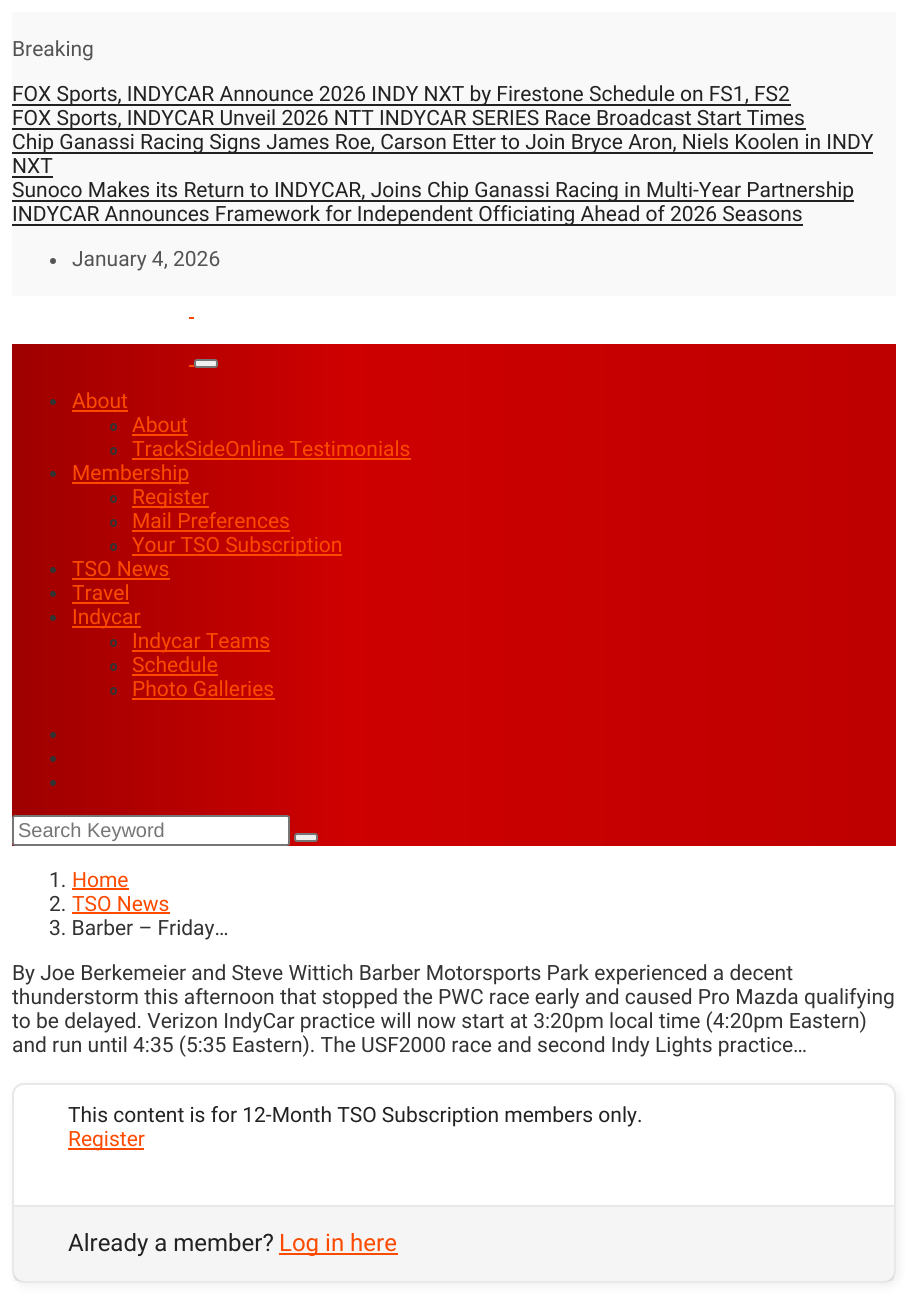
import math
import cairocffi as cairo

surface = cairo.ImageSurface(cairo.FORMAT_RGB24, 907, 1302)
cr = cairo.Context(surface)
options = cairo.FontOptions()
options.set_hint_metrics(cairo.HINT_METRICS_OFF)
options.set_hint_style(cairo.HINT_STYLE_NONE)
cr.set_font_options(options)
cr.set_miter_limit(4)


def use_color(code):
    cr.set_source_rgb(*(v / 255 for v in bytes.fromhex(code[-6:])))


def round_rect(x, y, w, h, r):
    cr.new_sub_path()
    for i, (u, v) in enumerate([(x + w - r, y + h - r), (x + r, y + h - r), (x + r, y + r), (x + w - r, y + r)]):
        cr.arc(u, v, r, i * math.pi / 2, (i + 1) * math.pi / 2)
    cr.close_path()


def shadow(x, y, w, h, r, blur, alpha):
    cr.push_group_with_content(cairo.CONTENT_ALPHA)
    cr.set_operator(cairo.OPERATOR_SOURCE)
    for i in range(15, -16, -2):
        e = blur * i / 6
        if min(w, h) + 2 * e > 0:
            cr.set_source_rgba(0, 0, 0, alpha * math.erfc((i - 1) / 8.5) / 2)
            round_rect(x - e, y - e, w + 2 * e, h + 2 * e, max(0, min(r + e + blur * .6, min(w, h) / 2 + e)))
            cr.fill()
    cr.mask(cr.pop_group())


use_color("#ffffff")
cr.paint()
use_color("#f9f9f9")
cr.rectangle(12, 12, 884, 284)
cr.fill()
cr.select_font_face("Roboto")
cr.set_font_size(21)
use_color("#545454")
cr.move_to(12, 56)
cr.show_text("Breaking")
use_color("#222222")
cr.rectangle(12, 104, 779, 2)
cr.fill()
cr.move_to(12, 101)
cr.show_text("FOX Sports, INDYCAR Announce 2026 INDY NXT by Firestone Schedule on FS1, FS2")
cr.rectangle(12, 128, 794, 2)
cr.fill()
cr.move_to(12, 125)
cr.show_text("FOX Sports, INDYCAR Unveil 2026 NTT INDYCAR SERIES Race Broadcast Start Times")
cr.rectangle(12, 152, 861, 2)
cr.fill()
cr.move_to(12, 149)
cr.show_text("Chip Ganassi Racing Signs James Roe, Carson Etter to Join Bryce Aron, Niels Koolen in INDY")
cr.move_to(12, 173)
cr.show_text("NXT")
cr.rectangle(12, 176, 41, 2)
cr.fill()
cr.rectangle(12, 200, 842, 2)
cr.fill()
cr.move_to(12, 197)
cr.show_text("Sunoco Makes its Return to INDYCAR, Joins Chip Ganassi Racing in Multi-Year Partnership")
cr.rectangle(12, 224, 791, 2)
cr.fill()
cr.move_to(12, 221)
cr.show_text("INDYCAR Announces Framework for Independent Officiating Ahead of 2026 Seasons")
use_color("#545454")
cr.new_path()
cr.arc(53, 261, 3, 0, 2 * math.pi)
cr.fill()
cr.move_to(72, 266)
cr.show_text("January 4, 2026")
use_color("#fc4a00")
cr.rectangle(189, 317, 5, 2)
cr.fill()
gradient = cairo.LinearGradient(12, 595, 896, 595)
gradient.add_color_stop_rgba(0, 0.62, 0, 0, 1)
gradient.add_color_stop_rgba(0.38, 0.808, 0, 0, 1)
gradient.add_color_stop_rgba(1, 0.745, 0, 0, 1)
cr.set_source(gradient)
cr.rectangle(12, 344, 884, 502)
cr.fill()
use_color("#fc4a00")
cr.rectangle(189, 365, 5, 2)
cr.fill()
use_color("#efefef")
round_rect(195, 360, 22, 7, 2)
cr.fill_preserve()
use_color("#767676")
cr.stroke()
use_color("#333333")
cr.arc(53, 402, 3, 0, 2 * math.pi)
cr.fill()
use_color("#fc4a00")
cr.move_to(72, 408)
cr.show_text("About")
cr.rectangle(72, 410, 56, 2)
cr.fill()
round_rect(111, 424, 5, 6, 2.5)
use_color("#333333")
cr.stroke()
use_color("#fc4a00")
cr.move_to(132, 432)
cr.show_text("About")
cr.rectangle(132, 434, 56, 2)
cr.fill()
round_rect(111, 448, 5, 6, 2.5)
use_color("#333333")
cr.stroke()
use_color("#fc4a00")
cr.move_to(132, 456)
cr.show_text("TrackSideOnline Testimonials")
cr.rectangle(132, 458, 279, 2)
cr.fill()
use_color("#333333")
cr.arc(53, 474, 3, 0, 2 * math.pi)
cr.fill()
use_color("#fc4a00")
cr.rectangle(72, 482, 117, 2)
cr.fill()
cr.move_to(72, 480)
cr.show_text("Membership")
round_rect(111, 496, 5, 6, 2.5)
use_color("#333333")
cr.stroke()
use_color("#fc4a00")
cr.rectangle(132, 506, 77, 2)
cr.fill()
cr.move_to(132, 504)
cr.show_text("Register")
round_rect(111, 520, 5, 6, 2.5)
use_color("#333333")
cr.stroke()
use_color("#fc4a00")
cr.move_to(132, 528)
cr.show_text("Mail Preferences")
cr.rectangle(132, 530, 158, 2)
cr.fill()
round_rect(111, 544, 5, 6, 2.5)
use_color("#333333")
cr.stroke()
use_color("#fc4a00")
cr.rectangle(132, 554, 210, 2)
cr.fill()
cr.move_to(132, 552)
cr.show_text("Your TSO Subscription")
use_color("#333333")
cr.new_path()
cr.arc(53, 570, 3, 0, 2 * math.pi)
cr.fill()
use_color("#fc4a00")
cr.move_to(72, 576)
cr.show_text("TSO News")
cr.rectangle(72, 578, 98, 2)
cr.fill()
use_color("#333333")
cr.arc(53, 594, 3, 0, 2 * math.pi)
cr.fill()
use_color("#fc4a00")
cr.move_to(72, 600)
cr.show_text("Travel")
cr.rectangle(72, 602, 57, 2)
cr.fill()
use_color("#333333")
cr.arc(53, 618, 3, 0, 2 * math.pi)
cr.fill()
use_color("#fc4a00")
cr.rectangle(72, 626, 69, 2)
cr.fill()
cr.move_to(72, 624)
cr.show_text("Indycar")
round_rect(111, 640, 5, 6, 2.5)
use_color("#333333")
cr.stroke()
use_color("#fc4a00")
cr.rectangle(132, 650, 138, 2)
cr.fill()
cr.move_to(132, 648)
cr.show_text("Indycar Teams")
round_rect(111, 664, 5, 6, 2.5)
use_color("#333333")
cr.stroke()
use_color("#fc4a00")
cr.move_to(132, 672)
cr.show_text("Schedule")
cr.rectangle(132, 674, 86, 2)
cr.fill()
round_rect(111, 688, 5, 6, 2.5)
use_color("#333333")
cr.stroke()
use_color("#fc4a00")
cr.move_to(132, 696)
cr.show_text("Photo Galleries")
cr.rectangle(132, 698, 143, 2)
cr.fill()
use_color("#333333")
cr.arc(53, 735, 3, 0, 2 * math.pi)
cr.fill()
cr.arc(53, 759, 3, 0, 2 * math.pi)
cr.fill()
cr.arc(53, 783, 3, 0, 2 * math.pi)
cr.fill()
use_color("#ffffff")
round_rect(13, 816, 276, 29, 2)
cr.fill_preserve()
use_color("#767676")
cr.stroke()
cr.select_font_face("Liberation Sans")
cr.set_font_size(20)
use_color("#757575")
cr.move_to(18, 837)
cr.show_text("Search Keyword")
use_color("#efefef")
round_rect(295, 834, 22, 7, 2)
cr.fill_preserve()
use_color("#767676")
cr.stroke()
cr.select_font_face("Roboto")
cr.set_font_size(21)
use_color("#333333")
cr.move_to(49, 887)
cr.show_text("1.")
use_color("#fc4a00")
cr.move_to(72, 887)
cr.show_text("Home")
cr.rectangle(72, 888, 57, 2)
cr.fill()
use_color("#333333")
cr.move_to(49, 911)
cr.show_text("2.")
use_color("#fc4a00")
cr.move_to(72, 911)
cr.show_text("TSO News")
cr.rectangle(72, 912, 98, 2)
cr.fill()
use_color("#333333")
cr.move_to(49, 935)
cr.show_text("3. Barber – Friday…")
cr.move_to(12, 980)
cr.show_text("By Joe Berkemeier and Steve Wittich Barber Motorsports Park experienced a decent")
cr.move_to(12, 1004)
cr.show_text("thunderstorm this afternoon that stopped the PWC race early and caused Pro Mazda qualifying")
cr.move_to(12, 1028)
cr.show_text("to be delayed. Verizon IndyCar practice will now start at 3:20pm local time (4:20pm Eastern)")
cr.move_to(12, 1052)
cr.show_text("and run until 4:35 (5:35 Eastern). The USF2000 race and second Indy Lights practice…")
use_color("#000000")
shadow(15, 1086, 884, 200, 12, 5, 0.07)
use_color("#ffffff")
round_rect(13, 1084, 882, 198, 11)
cr.fill_preserve()
use_color("#e8e8e8")
cr.stroke()
use_color("#222222")
cr.move_to(68, 1122)
cr.show_text("This content is for 12-Month TSO Subscription members only.")
use_color("#fc4a00")
cr.rectangle(68, 1148, 76, 2)
cr.fill()
cr.move_to(68, 1146)
cr.show_text("Register")
cr.set_source_rgba(0, 0, 0, 0.04)
cr.rectangle(14, 1207, 880, 74)
cr.fill()
use_color("#e8e8e8")
cr.rectangle(14, 1205, 880, 2)
cr.fill()
cr.set_font_size(24)
use_color("#222222")
cr.move_to(68, 1251)
cr.show_text("Already a member?")
use_color("#fc4a00")
cr.rectangle(279, 1253, 119, 2)
cr.fill()
cr.move_to(279, 1251)
cr.show_text("Log in here")
surface.write_to_png("result.png")
